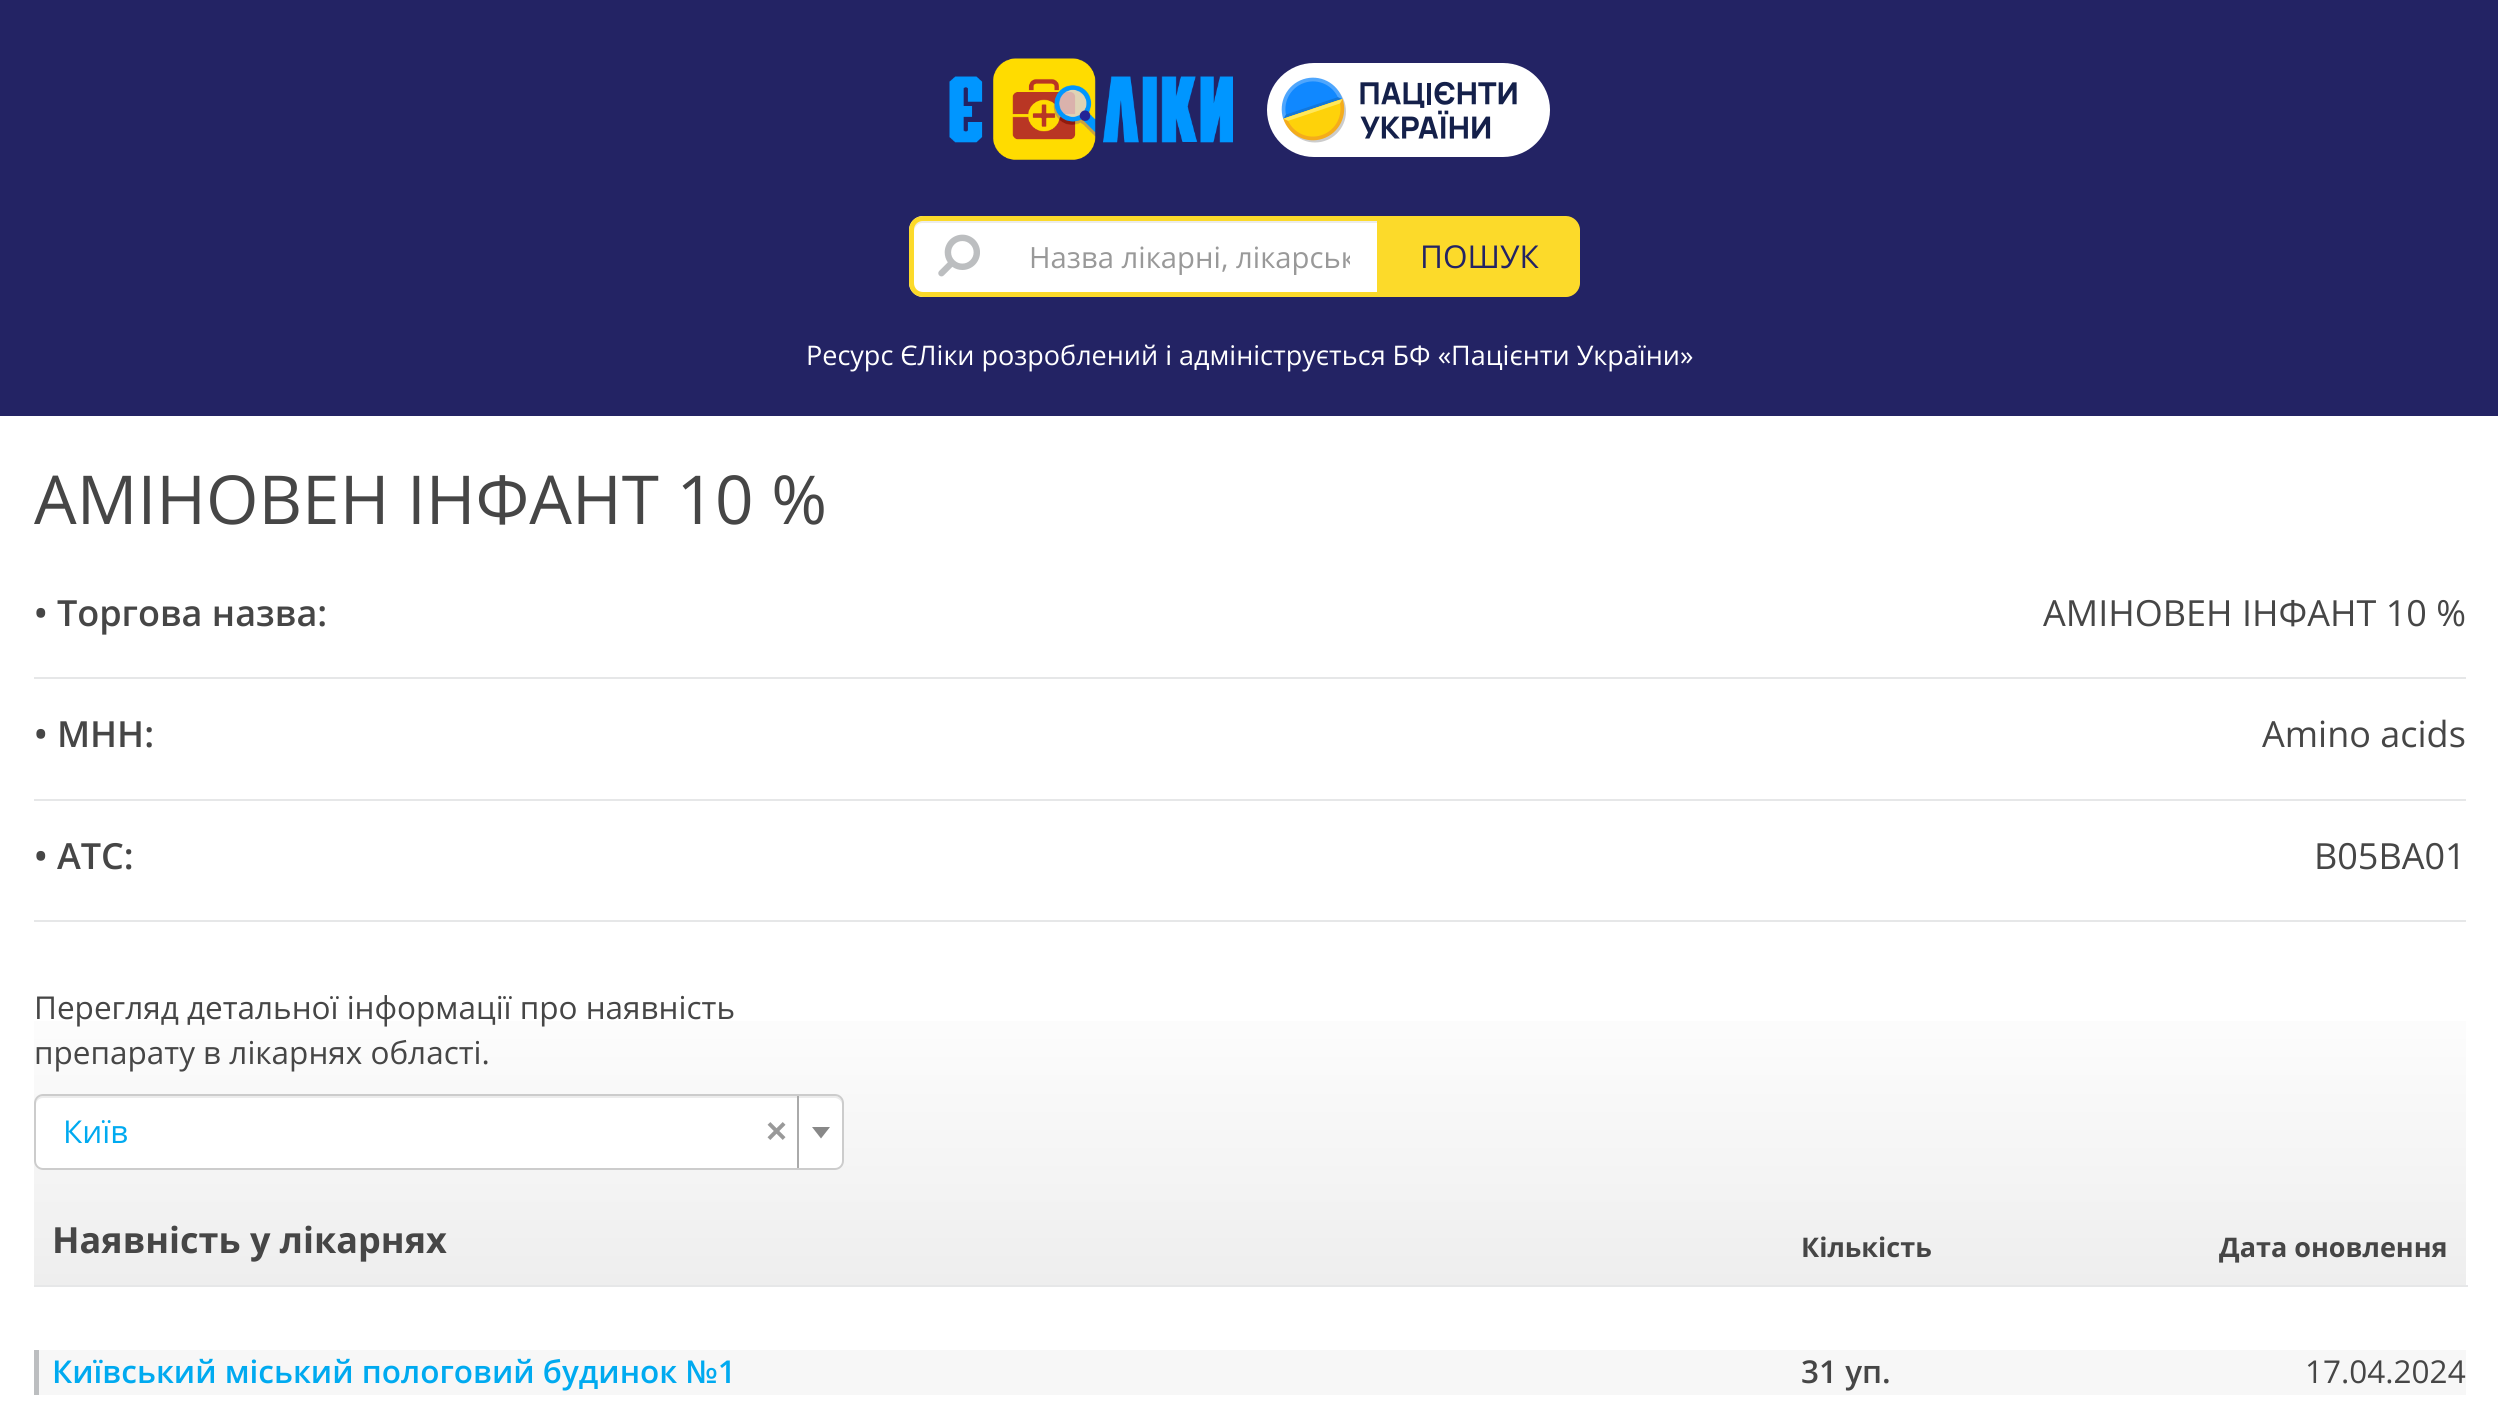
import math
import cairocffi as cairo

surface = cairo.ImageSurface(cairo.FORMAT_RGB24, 2498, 1416)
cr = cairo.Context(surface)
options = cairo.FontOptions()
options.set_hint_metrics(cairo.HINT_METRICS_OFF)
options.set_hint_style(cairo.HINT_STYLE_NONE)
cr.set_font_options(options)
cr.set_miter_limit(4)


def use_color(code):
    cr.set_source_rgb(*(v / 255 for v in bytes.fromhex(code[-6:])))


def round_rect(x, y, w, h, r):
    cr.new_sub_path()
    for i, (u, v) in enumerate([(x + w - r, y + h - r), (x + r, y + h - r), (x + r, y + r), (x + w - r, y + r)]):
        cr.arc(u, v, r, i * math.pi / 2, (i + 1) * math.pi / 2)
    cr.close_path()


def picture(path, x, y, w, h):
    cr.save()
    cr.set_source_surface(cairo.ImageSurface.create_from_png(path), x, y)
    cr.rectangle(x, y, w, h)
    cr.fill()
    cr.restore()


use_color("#ffffff")
cr.paint()
use_color("#232364")
cr.rectangle(0, 0, 2498, 416)
cr.fill()
picture("img1.png", 949, 58, 284, 102)
picture("img2.png", 1267, 63, 283, 94)
use_color("#ffffff")
cr.new_path()
cr.move_to(923, 216)
cr.line_to(1382, 216)
cr.line_to(1382, 297)
cr.line_to(923, 297)
cr.curve_to(915.5, 297, 909, 290.5, 909, 283)
cr.line_to(909, 230)
cr.curve_to(909, 222.5, 915.5, 216, 923, 216)
cr.close_path()
cr.fill()
use_color("#ececec")
cr.new_path()
cr.move_to(922, 223)
cr.line_to(1377, 223)
cr.line_to(1377, 221)
cr.line_to(923, 221)
cr.curve_to(918, 221, 914, 225, 914, 230)
cr.line_to(914, 232)
cr.curve_to(914, 227, 918, 223, 922, 223)
cr.close_path()
cr.fill()
cr.new_path()
cr.move_to(923, 218.5)
cr.line_to(1379.5, 218.5)
cr.line_to(1379.5, 294.5)
cr.line_to(923, 294.5)
cr.curve_to(916.5, 294.5, 911.5, 289.5, 911.5, 283)
cr.line_to(911.5, 230)
cr.curve_to(911.5, 223.5, 916.5, 218.5, 923, 218.5)
cr.close_path()
use_color("#fcda2a")
cr.set_line_width(5)
cr.stroke()
picture("img3.png", 938, 234, 42, 43)
cr.save()
cr.rectangle(1031, 236, 319, 41)
cr.clip()
cr.select_font_face("Open Sans")
cr.set_font_size(29.25)
use_color("#999999")
cr.move_to(1029, 268)
cr.show_text("Назва лікарні, лікарськ")
cr.restore()
cr.new_path()
cr.move_to(1382, 216)
cr.line_to(1566, 216)
cr.curve_to(1573.5, 216, 1580, 222.5, 1580, 230)
cr.line_to(1580, 283)
cr.curve_to(1580, 290.5, 1573.5, 297, 1566, 297)
cr.line_to(1382, 297)
cr.close_path()
cr.fill()
cr.select_font_face("Open Sans")
cr.set_font_size(31.5)
use_color("#232364")
cr.move_to(1420, 268)
cr.show_text("ПОШУК")
cr.set_font_size(27)
use_color("#ffffff")
cr.move_to(806, 365)
cr.show_text("Ресурс ЄЛіки розроблений і адмініструється БФ «Пацієнти України»")
cr.set_font_size(67.5)
use_color("#464646")
cr.move_to(34, 524)
cr.show_text("АМІНОВЕН ІНФАНТ 10 %")
use_color("#e6e7e8")
cr.rectangle(34, 677, 2432, 2)
cr.fill()
cr.select_font_face("Open Sans SemiBold")
cr.set_font_size(36)
use_color("#464646")
cr.move_to(34, 626)
cr.show_text("• Торгова назва:")
cr.select_font_face("Open Sans")
cr.move_to(2043, 626)
cr.show_text("АМІНОВЕН ІНФАНТ 10 %")
use_color("#e6e7e8")
cr.rectangle(34, 799, 2432, 2)
cr.fill()
cr.select_font_face("Open Sans SemiBold")
use_color("#464646")
cr.move_to(34, 747)
cr.show_text("• МНН:")
cr.select_font_face("Open Sans")
cr.move_to(2262, 747)
cr.show_text("Amino acids")
use_color("#e6e7e8")
cr.rectangle(34, 920, 2432, 2)
cr.fill()
cr.select_font_face("Open Sans SemiBold")
use_color("#464646")
cr.move_to(34, 869)
cr.show_text("• ATC:")
cr.select_font_face("Open Sans")
cr.move_to(2314, 869)
cr.show_text("B05BA01")
gradient = cairo.LinearGradient(1250, 976, 1250, 1285)
gradient.add_color_stop_rgba(0, 1, 1, 1, 1)
gradient.add_color_stop_rgba(1, 0.933, 0.933, 0.933, 1)
cr.set_source(gradient)
cr.rectangle(34, 1021, 2432, 264)
cr.fill()
cr.set_font_size(31.5)
use_color("#464646")
cr.move_to(34, 1019)
cr.show_text("Перегляд детальної інформації про наявність")
cr.move_to(34, 1064)
cr.show_text("препарату в лікарнях області.")
use_color("#ffffff")
round_rect(34, 1094, 810, 76, 9)
cr.fill()
use_color("#ececec")
cr.new_path()
cr.move_to(43, 1098)
cr.line_to(835, 1098)
cr.curve_to(838, 1098, 842, 1101, 842, 1105)
cr.line_to(842, 1103)
cr.curve_to(842, 1099, 839, 1096, 835, 1096)
cr.line_to(43, 1096)
cr.curve_to(39, 1096, 36, 1099, 36, 1103)
cr.line_to(36, 1105)
cr.curve_to(36, 1101, 39, 1098, 43, 1098)
cr.close_path()
cr.fill()
round_rect(35, 1095, 808, 74, 8)
use_color("#cccccc")
cr.set_line_width(2)
cr.stroke()
use_color("#00aaf0")
cr.move_to(63, 1143)
cr.show_text("Київ")
cr.select_font_face("Liberation Sans", cairo.FONT_SLANT_NORMAL, cairo.FONT_WEIGHT_BOLD)
cr.set_font_size(36)
use_color("#999999")
cr.move_to(766, 1143)
cr.show_text("×")
use_color("#aaaaaa")
cr.rectangle(797, 1096, 2, 72)
cr.fill()
use_color("#888888")
cr.new_path()
cr.move_to(812, 1127)
cr.line_to(830, 1127)
cr.line_to(821, 1138.5)
cr.close_path()
cr.fill()
cr.select_font_face("Open Sans", cairo.FONT_SLANT_NORMAL, cairo.FONT_WEIGHT_BOLD)
use_color("#464646")
cr.move_to(52, 1253)
cr.show_text("Наявність у лікарнях")
cr.set_font_size(27)
cr.move_to(1801, 1257)
cr.show_text("Кількість")
cr.move_to(2219, 1257)
cr.show_text("Дата оновлення")
use_color("#e6e7e8")
cr.rectangle(34, 1285, 2434, 2)
cr.fill()
use_color("#f7f7f7")
cr.rectangle(39, 1350, 2427, 45)
cr.fill()
use_color("#bcbec0")
cr.rectangle(34, 1350, 5, 45)
cr.fill()
cr.select_font_face("Open Sans SemiBold")
cr.set_font_size(31.5)
use_color("#00aaf0")
cr.move_to(52, 1383)
cr.show_text("Київський міський пологовий будинок №1")
use_color("#464646")
cr.move_to(1801, 1383)
cr.show_text("31 уп.")
cr.select_font_face("Open Sans")
cr.move_to(2305, 1383)
cr.show_text("17.04.2024")
surface.write_to_png("result.png")
